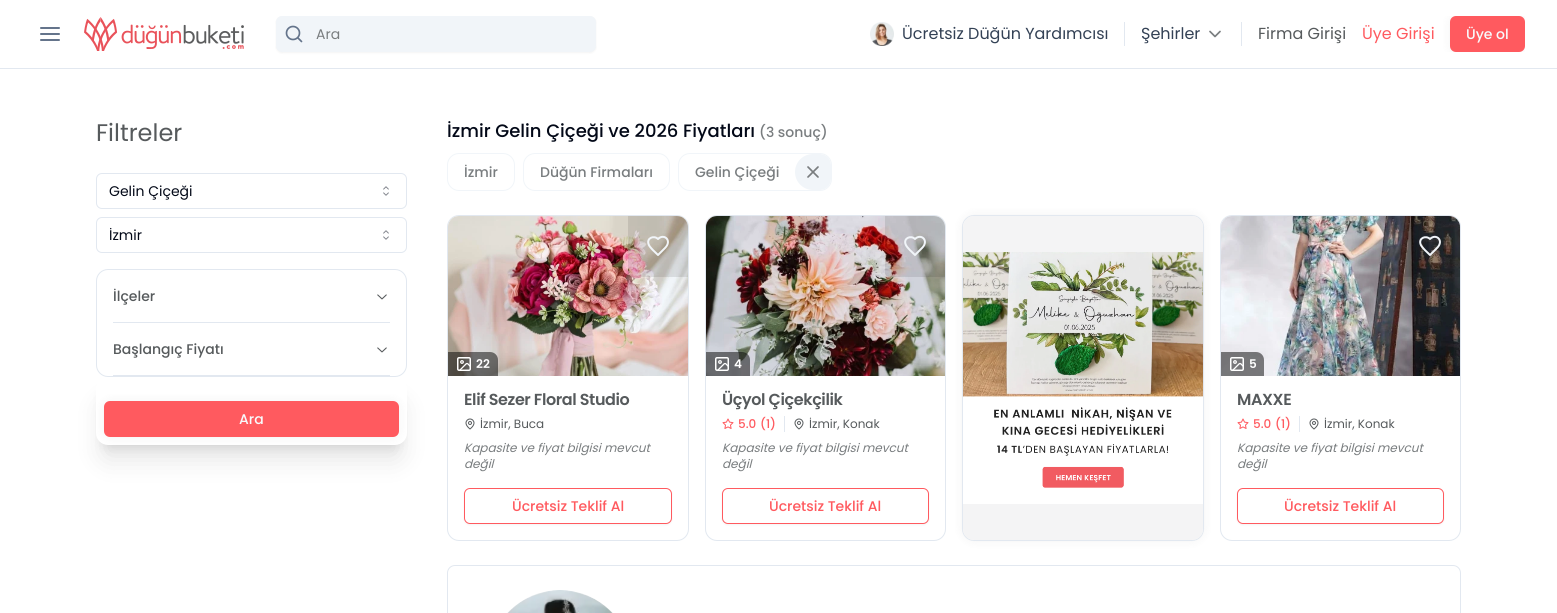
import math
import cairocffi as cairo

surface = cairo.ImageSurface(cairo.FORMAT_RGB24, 1557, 613)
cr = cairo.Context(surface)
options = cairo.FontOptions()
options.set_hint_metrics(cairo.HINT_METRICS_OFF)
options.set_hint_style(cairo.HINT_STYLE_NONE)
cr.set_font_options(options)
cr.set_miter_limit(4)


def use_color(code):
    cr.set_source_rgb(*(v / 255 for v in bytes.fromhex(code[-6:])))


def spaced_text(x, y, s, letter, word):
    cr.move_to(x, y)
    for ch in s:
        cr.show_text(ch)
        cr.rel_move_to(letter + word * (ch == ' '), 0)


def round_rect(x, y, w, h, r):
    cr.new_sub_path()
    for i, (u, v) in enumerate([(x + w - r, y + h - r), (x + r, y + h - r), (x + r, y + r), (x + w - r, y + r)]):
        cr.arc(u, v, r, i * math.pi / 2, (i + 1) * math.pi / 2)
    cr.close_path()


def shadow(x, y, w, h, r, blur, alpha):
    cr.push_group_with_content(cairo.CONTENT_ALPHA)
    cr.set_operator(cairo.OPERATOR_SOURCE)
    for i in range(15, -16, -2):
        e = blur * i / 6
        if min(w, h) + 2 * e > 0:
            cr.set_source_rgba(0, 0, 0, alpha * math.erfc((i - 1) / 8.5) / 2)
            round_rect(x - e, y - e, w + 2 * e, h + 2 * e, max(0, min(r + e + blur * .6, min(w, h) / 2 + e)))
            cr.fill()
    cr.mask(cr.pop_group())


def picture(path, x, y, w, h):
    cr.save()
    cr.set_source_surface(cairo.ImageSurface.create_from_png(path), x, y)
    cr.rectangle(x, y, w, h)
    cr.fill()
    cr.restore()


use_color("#ffffff")
cr.paint()
use_color("#e2e8f0")
cr.rectangle(0, 68, 1557, 1)
cr.fill()
cr.new_path()
cr.move_to(41, 28)
cr.line_to(59, 28)
cr.move_to(41, 34)
cr.line_to(59, 34)
cr.move_to(41, 40)
cr.line_to(59, 40)
use_color("#64748b")
cr.set_line_cap(cairo.LINE_CAP_ROUND)
cr.set_line_join(cairo.LINE_JOIN_ROUND)
cr.stroke()
picture("img1.png", 84, 17, 160, 34)
use_color("#000000")
shadow(276, 17, 320, 36, 6, 1, 0.05)
use_color("#f1f5f9")
round_rect(276, 16, 320, 36, 6)
cr.fill()
cr.arc(293, 33, 6.5, 0, 2 * math.pi)
use_color("#64748b")
cr.set_line_width(1.7)
cr.set_line_cap(cairo.LINE_CAP_BUTT)
cr.set_line_join(cairo.LINE_JOIN_MITER)
cr.stroke()
cr.new_path()
cr.move_to(301.5, 41.5)
cr.line_to(298, 38)
cr.set_line_cap(cairo.LINE_CAP_ROUND)
cr.set_line_join(cairo.LINE_JOIN_ROUND)
cr.stroke()
cr.select_font_face("Poppins")
cr.set_font_size(14)
use_color("#797d7f")
cr.move_to(316, 39)
cr.show_text("Ara")
picture("img2.png", 870, 22, 24, 24)
cr.set_font_size(16)
use_color("#334155")
cr.move_to(902, 39)
cr.show_text("Ücretsiz Düğün Yardımcısı")
use_color("#e2e8f0")
cr.rectangle(1124, 22, 1, 24)
cr.fill()
use_color("#334155")
cr.move_to(1141, 39)
cr.show_text("Şehirler")
cr.new_path()
cr.move_to(1210, 31.5)
cr.line_to(1215, 36.5)
cr.line_to(1220, 31.5)
use_color("#797d7f")
cr.stroke()
use_color("#e2e8f0")
cr.rectangle(1241, 22, 1, 24)
cr.fill()
use_color("#565a5c")
cr.move_to(1258, 39)
cr.show_text("Firma Girişi")
use_color("#ff5a5f")
cr.move_to(1362, 39)
cr.show_text("Üye Girişi")
cr.save()
cr.rectangle(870, 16, 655, 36)
cr.clip()
use_color("#000000")
shadow(1450, 16, 75, 36, 6, 5, 0.05)
cr.restore()
round_rect(1450, 16, 75, 36, 6)
cr.fill()
cr.select_font_face("Poppins Medium")
cr.set_font_size(14)
use_color("#f8fafc")
cr.move_to(1466, 39)
cr.show_text("Üye ol")
cr.select_font_face("Poppins")
cr.set_font_size(24)
use_color("#565a5c")
cr.move_to(96, 141)
cr.show_text("Filtreler")
round_rect(96.5, 173.5, 310, 35, 5.5)
use_color("#e2e8f0")
cr.set_line_width(1)
cr.set_line_cap(cairo.LINE_CAP_BUTT)
cr.set_line_join(cairo.LINE_JOIN_MITER)
cr.stroke()
cr.set_font_size(14)
use_color("#020817")
cr.move_to(109, 196)
cr.show_text("Gelin Çiçeği")
picture("img3.png", 383, 186, 6, 10)
round_rect(96.5, 217.5, 310, 35, 5.5)
use_color("#e2e8f0")
cr.stroke()
use_color("#020817")
cr.move_to(109, 240)
cr.show_text("İzmir")
picture("img3.png", 383, 230, 6, 10)
round_rect(96.5, 269.5, 310, 107, 11.5)
use_color("#e2e8f0")
cr.stroke()
cr.rectangle(113, 322, 277, 1)
cr.fill()
cr.select_font_face("Poppins Medium")
use_color("#565a5c")
cr.move_to(113, 301)
cr.show_text("İlçeler")
picture("img4.png", 377, 294, 10, 6)
use_color("#e2e8f0")
cr.rectangle(113, 375, 277, 1)
cr.fill()
use_color("#565a5c")
cr.move_to(113, 354)
cr.show_text("Başlangıç Fiyatı")
picture("img4.png", 377, 347, 10, 6)
use_color("#000000")
shadow(102, 391, 299, 56, 6, 5, 0.1)
shadow(101, 402, 301, 58, 7, 12.5, 0.1)
use_color("#ffffff")
round_rect(96, 377, 311, 68, 12)
cr.fill()
use_color("#000000")
shadow(104, 401, 295, 36, 6, 5, 0.05)
use_color("#ff5a5f")
round_rect(104, 401, 295, 36, 6)
cr.fill()
use_color("#f8fafc")
cr.move_to(239, 424)
cr.show_text("Ara")
cr.set_font_size(18)
use_color("#020817")
cr.move_to(447, 137)
cr.show_text("İzmir Gelin Çiçeği ve 2026 Fiyatları")
cr.set_font_size(14)
use_color("#797d7f")
cr.move_to(759, 137)
cr.show_text("(3 sonuç)")
round_rect(447.5, 153.5, 67, 37, 11.5)
use_color("#f1f5f9")
cr.stroke()
use_color("#797d7f")
cr.move_to(464, 177)
cr.show_text("İzmir")
round_rect(523.5, 153.5, 146, 37, 11.5)
use_color("#f1f5f9")
cr.stroke()
use_color("#797d7f")
cr.move_to(540, 177)
cr.show_text("Düğün Firmaları")
round_rect(678.5, 153.5, 153, 37, 11.5)
use_color("#f1f5f9")
cr.stroke()
use_color("#797d7f")
cr.move_to(695, 177)
cr.show_text("Gelin Çiçeği")
use_color("#f1f5f9")
cr.new_path()
cr.move_to(813, 154)
cr.line_to(820, 154)
cr.curve_to(826, 154, 831, 159, 831, 165)
cr.line_to(831, 179)
cr.curve_to(831, 185, 826, 190, 820, 190)
cr.line_to(813, 190)
cr.curve_to(803, 190, 795, 182, 795, 172)
cr.curve_to(795, 162, 803, 154, 813, 154)
cr.close_path()
cr.fill()
cr.new_path()
cr.move_to(818, 167)
cr.line_to(808, 177)
cr.move_to(808, 167)
cr.line_to(818, 177)
use_color("#797d7f")
cr.set_line_width(1.7)
cr.set_line_cap(cairo.LINE_CAP_ROUND)
cr.set_line_join(cairo.LINE_JOIN_ROUND)
cr.stroke()
round_rect(447.5, 215.5, 241, 325, 11.5)
use_color("#e2e8f0")
cr.set_line_width(1)
cr.set_line_cap(cairo.LINE_CAP_BUTT)
cr.set_line_join(cairo.LINE_JOIN_MITER)
cr.stroke()
picture("img5.png", 448, 216, 240, 160)
cr.set_source_rgba(0, 0, 0, 0.1)
cr.new_path()
cr.move_to(628, 216)
cr.line_to(677, 216)
cr.curve_to(683, 216, 688, 221, 688, 227)
cr.line_to(688, 277)
cr.line_to(632, 277)
cr.curve_to(630, 277, 628, 275, 628, 273)
cr.close_path()
cr.fill()
cr.new_path()
cr.move_to(665, 248)
cr.curve_to(672.5, 240.5, 664, 233, 658, 239)
cr.curve_to(654, 235, 646.5, 238, 648.5, 244)
cr.curve_to(649.5, 247.5, 655.5, 252.5, 658, 255)
cr.close_path()
use_color("#f1f5f9")
cr.set_line_width(2)
cr.set_line_cap(cairo.LINE_CAP_ROUND)
cr.set_line_join(cairo.LINE_JOIN_ROUND)
cr.stroke()
cr.set_source_rgba(0, 0, 0, 0.5)
cr.new_path()
cr.move_to(448, 352)
cr.line_to(490, 352)
cr.curve_to(494.5, 352, 498, 355.5, 498, 360)
cr.line_to(498, 376)
cr.line_to(448, 376)
cr.close_path()
cr.fill()
picture("img6.png", 457, 357, 14, 14)
cr.select_font_face("Poppins SemiBold")
cr.set_font_size(12)
use_color("#ffffff")
cr.move_to(476, 368)
cr.show_text("22")
cr.set_font_size(16)
use_color("#565a5c")
spaced_text(464, 405, "Elif Sezer Floral Studio", -0.4, 0)
picture("img7.png", 465, 418, 10, 12)
cr.select_font_face("Poppins")
cr.set_font_size(12)
cr.move_to(480, 428)
cr.show_text("İzmir, Buca")
cr.select_font_face("Poppins", cairo.FONT_SLANT_ITALIC)
use_color("#797d7f")
cr.move_to(464, 452)
cr.show_text("Kapasite ve fiyat bilgisi mevcut")
cr.move_to(464, 468)
cr.show_text("değil")
use_color("#000000")
shadow(464, 489, 208, 36, 6, 1, 0.05)
use_color("#ffffff")
round_rect(464.5, 488.5, 207, 35, 5.5)
cr.fill_preserve()
use_color("#ff5a5f")
cr.set_line_width(1)
cr.set_line_cap(cairo.LINE_CAP_BUTT)
cr.set_line_join(cairo.LINE_JOIN_MITER)
cr.stroke()
cr.select_font_face("Poppins Medium")
cr.set_font_size(14)
cr.move_to(512, 511)
cr.show_text("Ücretsiz Teklif Al")
round_rect(705.5, 215.5, 240, 325, 11.5)
use_color("#e2e8f0")
cr.stroke()
picture("img8.png", 706, 216, 239, 160)
cr.set_source_rgba(0, 0, 0, 0.1)
cr.new_path()
cr.move_to(885, 216)
cr.line_to(934, 216)
cr.curve_to(940, 216, 945, 221, 945, 227)
cr.line_to(945, 277)
cr.line_to(889, 277)
cr.curve_to(887, 277, 885, 275, 885, 273)
cr.close_path()
cr.fill()
cr.new_path()
cr.move_to(922, 248)
cr.curve_to(929.5, 240.5, 921, 233, 915, 239)
cr.curve_to(911, 235, 903.5, 238, 905.5, 244)
cr.curve_to(906.5, 247.5, 912.5, 252.5, 915, 255)
cr.close_path()
use_color("#f1f5f9")
cr.set_line_width(2)
cr.set_line_cap(cairo.LINE_CAP_ROUND)
cr.set_line_join(cairo.LINE_JOIN_ROUND)
cr.stroke()
cr.set_source_rgba(0, 0, 0, 0.5)
cr.new_path()
cr.move_to(706, 352)
cr.line_to(742, 352)
cr.curve_to(746.5, 352, 750, 355.5, 750, 360)
cr.line_to(750, 376)
cr.line_to(706, 376)
cr.close_path()
cr.fill()
picture("img9.png", 715, 357, 14, 14)
cr.select_font_face("Poppins SemiBold")
cr.set_font_size(12)
use_color("#ffffff")
cr.move_to(734, 368)
cr.show_text("4")
cr.set_font_size(16)
use_color("#565a5c")
spaced_text(722, 405, "Üçyol Çiçekçilik", -0.4, 0)
picture("img10.png", 722, 418, 12, 11)
cr.select_font_face("Poppins Medium")
cr.set_font_size(12)
use_color("#ff5a5f")
cr.move_to(738, 428)
cr.show_text("5.0")
cr.move_to(760, 428)
cr.show_text("(1)")
use_color("#e2e8f0")
cr.rectangle(784, 416, 1, 16)
cr.fill()
picture("img7.png", 794, 418, 10, 12)
cr.select_font_face("Poppins")
use_color("#565a5c")
cr.move_to(809, 428)
cr.show_text("İzmir, Konak")
cr.select_font_face("Poppins", cairo.FONT_SLANT_ITALIC)
use_color("#797d7f")
cr.move_to(722, 452)
cr.show_text("Kapasite ve fiyat bilgisi mevcut")
cr.move_to(722, 468)
cr.show_text("değil")
use_color("#000000")
shadow(722, 489, 207, 36, 6, 1, 0.05)
use_color("#ffffff")
round_rect(722.5, 488.5, 206, 35, 5.5)
cr.fill_preserve()
use_color("#ff5a5f")
cr.set_line_width(1)
cr.set_line_cap(cairo.LINE_CAP_BUTT)
cr.set_line_join(cairo.LINE_JOIN_MITER)
cr.stroke()
cr.select_font_face("Poppins Medium")
cr.set_font_size(14)
cr.move_to(769, 511)
cr.show_text("Ücretsiz Teklif Al")
use_color("#000000")
shadow(962, 215, 242, 326, 12, 5, 0.05)
round_rect(962.5, 215.5, 241, 325, 11.5)
use_color("#e2e8f0")
cr.stroke()
use_color("#f4f4f5")
round_rect(963, 216, 240, 324, 11)
cr.fill()
picture("img11.png", 963, 252, 240, 252)
round_rect(1220.5, 215.5, 240, 325, 11.5)
use_color("#e2e8f0")
cr.stroke()
picture("img12.png", 1221, 216, 239, 160)
cr.set_source_rgba(0, 0, 0, 0.1)
cr.new_path()
cr.move_to(1400, 216)
cr.line_to(1449, 216)
cr.curve_to(1455, 216, 1460, 221, 1460, 227)
cr.line_to(1460, 277)
cr.line_to(1404, 277)
cr.curve_to(1402, 277, 1400, 275, 1400, 273)
cr.close_path()
cr.fill()
cr.new_path()
cr.move_to(1437, 248)
cr.curve_to(1444.5, 240.5, 1436, 233, 1430, 239)
cr.curve_to(1426, 235, 1418.5, 238, 1420.5, 244)
cr.curve_to(1421.5, 247.5, 1427.5, 252.5, 1430, 255)
cr.close_path()
use_color("#f1f5f9")
cr.set_line_width(2)
cr.set_line_cap(cairo.LINE_CAP_ROUND)
cr.set_line_join(cairo.LINE_JOIN_ROUND)
cr.stroke()
cr.set_source_rgba(0, 0, 0, 0.5)
cr.new_path()
cr.move_to(1221, 352)
cr.line_to(1256, 352)
cr.curve_to(1260.5, 352, 1264, 355.5, 1264, 360)
cr.line_to(1264, 376)
cr.line_to(1221, 376)
cr.close_path()
cr.fill()
picture("img13.png", 1230, 357, 14, 14)
cr.select_font_face("Poppins SemiBold")
cr.set_font_size(12)
use_color("#ffffff")
cr.move_to(1249, 368)
cr.show_text("5")
cr.set_font_size(16)
use_color("#565a5c")
spaced_text(1237, 405, "MAXXE", -0.4, 0)
picture("img10.png", 1237, 418, 12, 11)
cr.select_font_face("Poppins Medium")
cr.set_font_size(12)
use_color("#ff5a5f")
cr.move_to(1253, 428)
cr.show_text("5.0")
cr.move_to(1275, 428)
cr.show_text("(1)")
use_color("#e2e8f0")
cr.rectangle(1299, 416, 1, 16)
cr.fill()
picture("img7.png", 1309, 418, 10, 12)
cr.select_font_face("Poppins")
use_color("#565a5c")
cr.move_to(1324, 428)
cr.show_text("İzmir, Konak")
cr.select_font_face("Poppins", cairo.FONT_SLANT_ITALIC)
use_color("#797d7f")
cr.move_to(1237, 452)
cr.show_text("Kapasite ve fiyat bilgisi mevcut")
cr.move_to(1237, 468)
cr.show_text("değil")
use_color("#000000")
shadow(1237, 489, 207, 36, 6, 1, 0.05)
use_color("#ffffff")
round_rect(1237.5, 488.5, 206, 35, 5.5)
cr.fill_preserve()
use_color("#ff5a5f")
cr.set_line_width(1)
cr.set_line_cap(cairo.LINE_CAP_BUTT)
cr.set_line_join(cairo.LINE_JOIN_MITER)
cr.stroke()
cr.select_font_face("Poppins Medium")
cr.set_font_size(14)
cr.move_to(1284, 511)
cr.show_text("Ücretsiz Teklif Al")
round_rect(447.5, 565.5, 1013, 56, 7.5)
use_color("#e2e8f0")
cr.stroke()
picture("img14.png", 507, 590, 106, 23)
surface.write_to_png("result.png")
